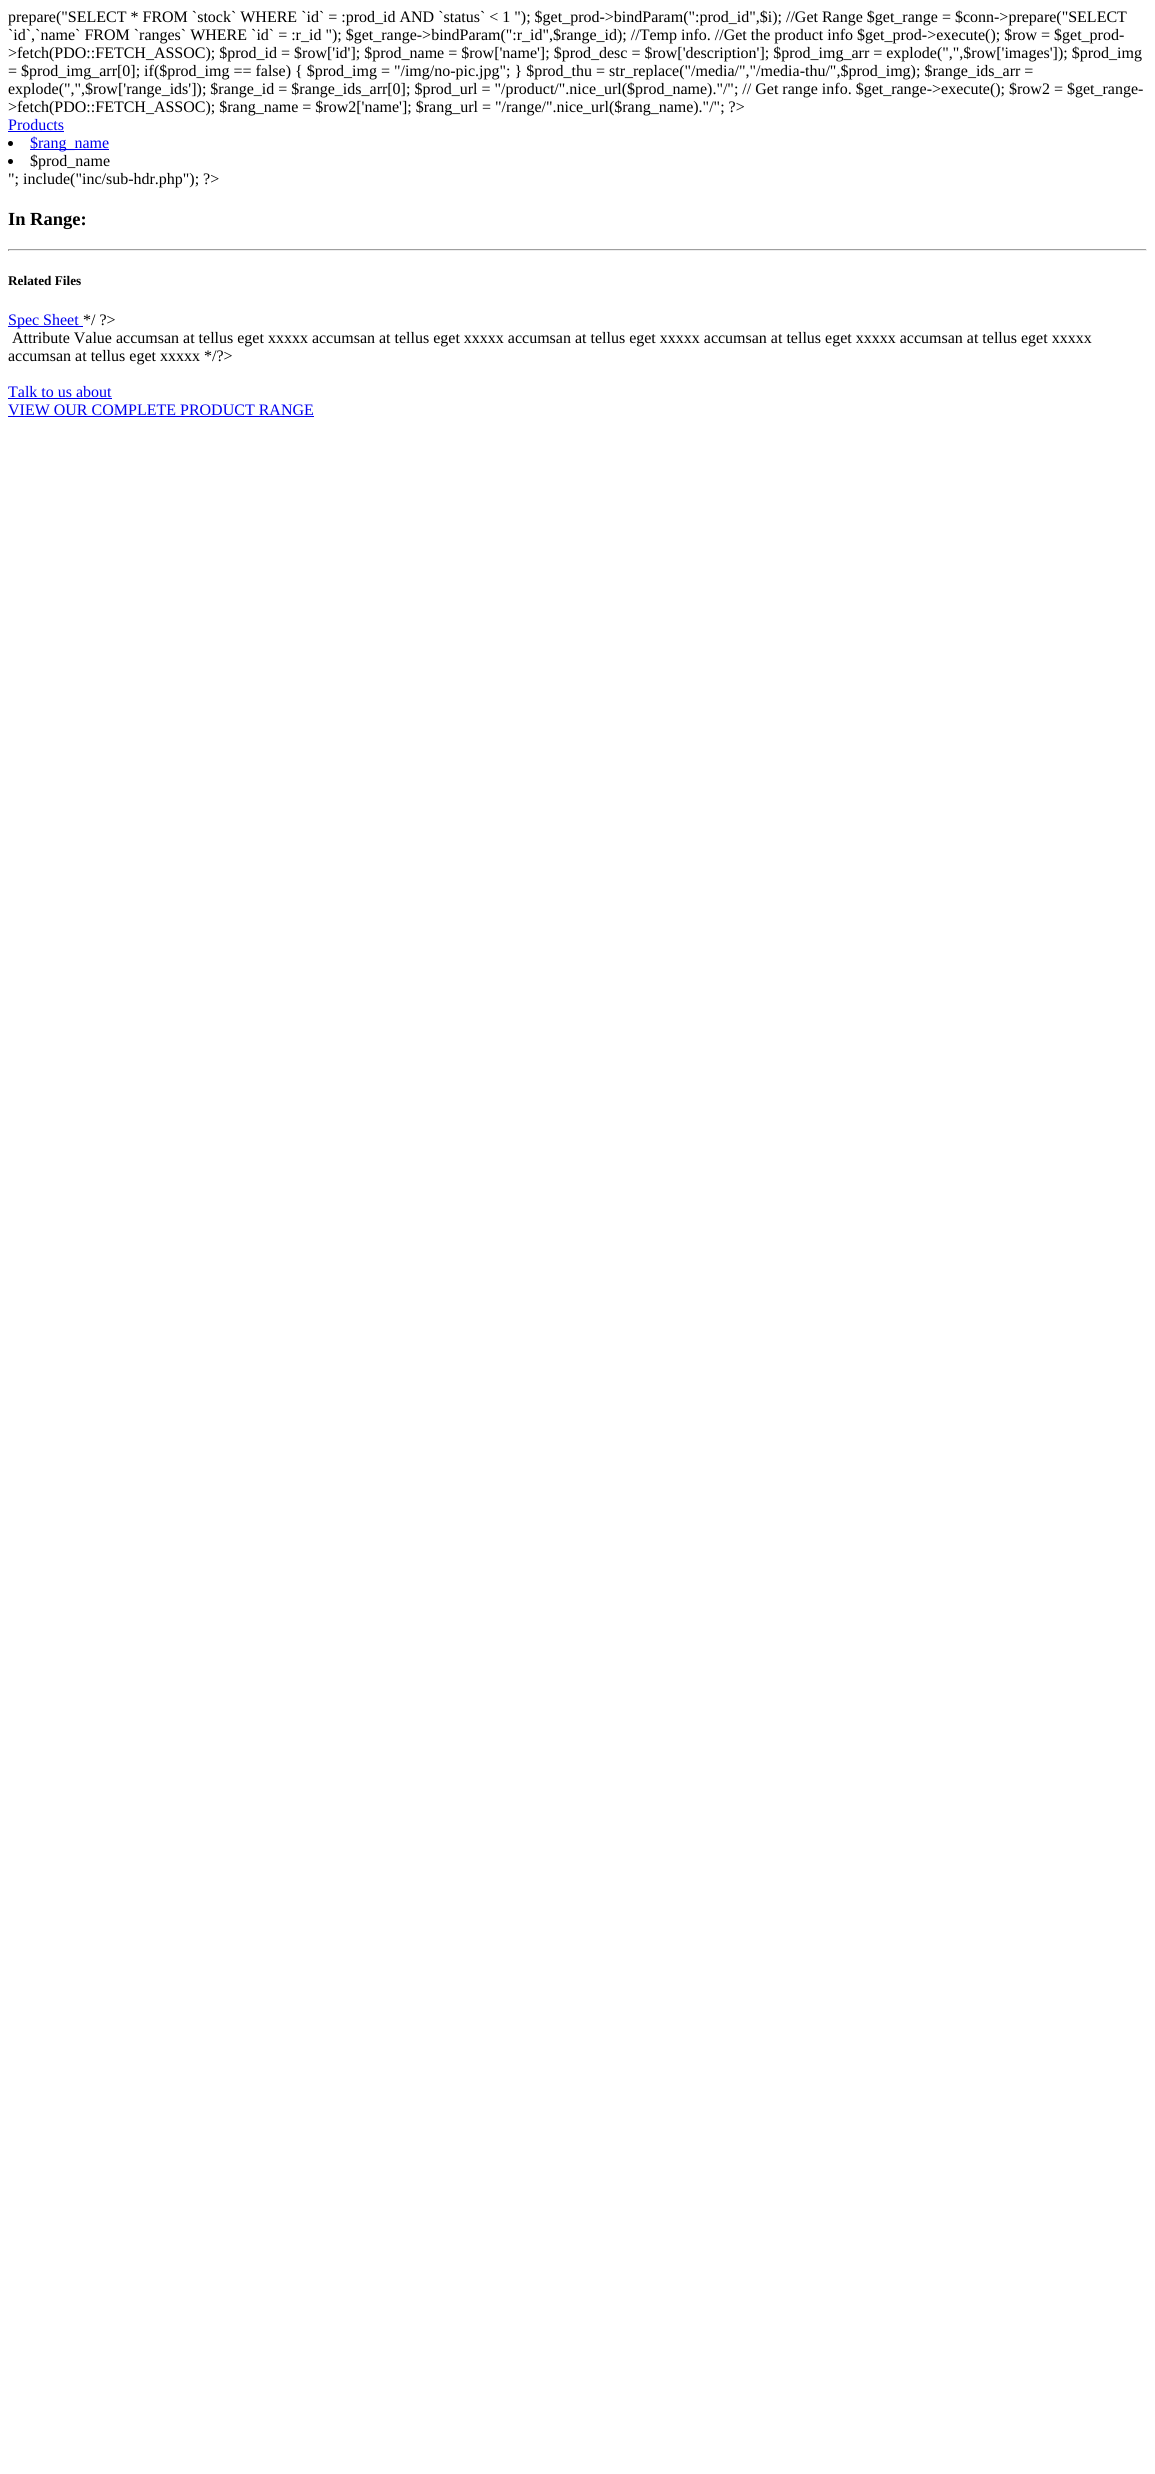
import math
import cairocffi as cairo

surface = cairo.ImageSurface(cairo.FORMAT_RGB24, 1155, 2474)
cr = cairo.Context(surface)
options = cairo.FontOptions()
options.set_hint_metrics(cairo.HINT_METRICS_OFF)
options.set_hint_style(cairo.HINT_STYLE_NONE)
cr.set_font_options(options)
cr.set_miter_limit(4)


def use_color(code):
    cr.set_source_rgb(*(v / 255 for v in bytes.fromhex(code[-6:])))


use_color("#ffffff")
cr.paint()
cr.select_font_face("Liberation Serif")
cr.set_font_size(16)
use_color("#000000")
cr.move_to(8, 22)
cr.show_text("prepare(\"SELECT * FROM `stock` WHERE `id` = :prod_id AND `status` < 1 \"); $get_prod->bindParam(\":prod_id\",$i); //Get Range $get_range = $conn->prepare(\"SELECT")
cr.move_to(8, 40)
cr.show_text("`id`,`name` FROM `ranges` WHERE `id` = :r_id \"); $get_range->bindParam(\":r_id\",$range_id); //Temp info. //Get the product info $get_prod->execute(); $row = $get_prod-")
cr.move_to(8, 58)
cr.show_text(">fetch(PDO::FETCH_ASSOC); $prod_id = $row['id']; $prod_name = $row['name']; $prod_desc = $row['description']; $prod_img_arr = explode(\",\",$row['images']); $prod_img")
cr.move_to(8, 76)
cr.show_text("= $prod_img_arr[0]; if($prod_img == false) { $prod_img = \"/img/no-pic.jpg\"; } $prod_thu = str_replace(\"/media/\",\"/media-thu/\",$prod_img); $range_ids_arr =")
cr.move_to(8, 94)
cr.show_text("explode(\",\",$row['range_ids']); $range_id = $range_ids_arr[0]; $prod_url = \"/product/\".nice_url($prod_name).\"/\"; // Get range info. $get_range->execute(); $row2 = $get_range-")
cr.move_to(8, 112)
cr.show_text(">fetch(PDO::FETCH_ASSOC); $rang_name = $row2['name']; $rang_url = \"/range/\".nice_url($rang_name).\"/\"; ?>")
use_color("#0000ee")
cr.move_to(8, 130)
cr.show_text("Products")
cr.rectangle(8, 131, 56, 1)
cr.fill()
use_color("#000000")
cr.arc(10.5, 143.5, 2.5, 0, 2 * math.pi)
cr.fill()
use_color("#0000ee")
cr.rectangle(30, 149, 79, 1)
cr.fill()
cr.move_to(30, 148)
cr.show_text("$rang_name")
use_color("#000000")
cr.new_path()
cr.arc(10.5, 161.5, 2.5, 0, 2 * math.pi)
cr.fill()
cr.move_to(30, 166)
cr.show_text("$prod_name")
cr.move_to(8, 184)
cr.show_text("\"; include(\"inc/sub-hdr.php\"); ?>")
cr.select_font_face("Liberation Serif", cairo.FONT_SLANT_NORMAL, cairo.FONT_WEIGHT_BOLD)
cr.set_font_size(18.5)
cr.move_to(8, 225)
cr.show_text("In Range:")
use_color("#9f9f9f")
cr.rectangle(8, 249, 1139, 1)
cr.fill()
use_color("#eeeeee")
cr.rectangle(1146, 249, 1, 2)
cr.fill()
cr.rectangle(8, 250, 1139, 1)
cr.fill()
use_color("#9f9f9f")
cr.rectangle(8, 249, 1, 2)
cr.fill()
cr.set_font_size(13.25)
use_color("#000000")
cr.move_to(8, 285)
cr.show_text("Related Files")
use_color("#0000ee")
cr.rectangle(8, 326, 75, 1)
cr.fill()
cr.select_font_face("Liberation Serif")
cr.set_font_size(16)
cr.move_to(8, 325)
cr.show_text("Spec Sheet")
use_color("#000000")
cr.move_to(83, 325)
cr.show_text("*/ ?>")
cr.move_to(12, 343)
cr.show_text("Attribute Value accumsan at tellus eget xxxxx accumsan at tellus eget xxxxx accumsan at tellus eget xxxxx accumsan at tellus eget xxxxx accumsan at tellus eget xxxxx")
cr.move_to(8, 361)
cr.show_text("accumsan at tellus eget xxxxx */?>")
use_color("#0000ee")
cr.move_to(8, 397)
cr.show_text("Talk to us about")
cr.rectangle(8, 398, 104, 1)
cr.fill()
cr.move_to(8, 415)
cr.show_text("VIEW OUR COMPLETE PRODUCT RANGE")
cr.rectangle(8, 416, 306, 1)
cr.fill()
surface.write_to_png("result.png")
